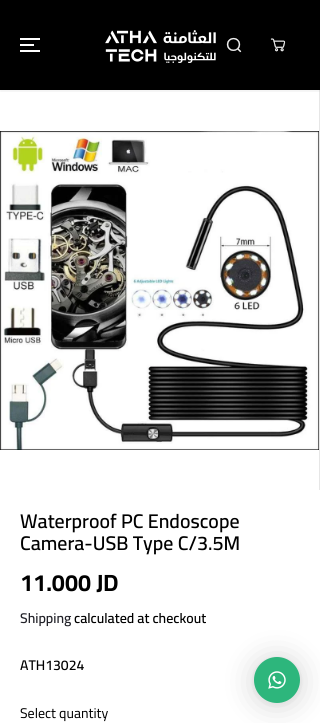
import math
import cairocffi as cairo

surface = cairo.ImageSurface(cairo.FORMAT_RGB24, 320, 723)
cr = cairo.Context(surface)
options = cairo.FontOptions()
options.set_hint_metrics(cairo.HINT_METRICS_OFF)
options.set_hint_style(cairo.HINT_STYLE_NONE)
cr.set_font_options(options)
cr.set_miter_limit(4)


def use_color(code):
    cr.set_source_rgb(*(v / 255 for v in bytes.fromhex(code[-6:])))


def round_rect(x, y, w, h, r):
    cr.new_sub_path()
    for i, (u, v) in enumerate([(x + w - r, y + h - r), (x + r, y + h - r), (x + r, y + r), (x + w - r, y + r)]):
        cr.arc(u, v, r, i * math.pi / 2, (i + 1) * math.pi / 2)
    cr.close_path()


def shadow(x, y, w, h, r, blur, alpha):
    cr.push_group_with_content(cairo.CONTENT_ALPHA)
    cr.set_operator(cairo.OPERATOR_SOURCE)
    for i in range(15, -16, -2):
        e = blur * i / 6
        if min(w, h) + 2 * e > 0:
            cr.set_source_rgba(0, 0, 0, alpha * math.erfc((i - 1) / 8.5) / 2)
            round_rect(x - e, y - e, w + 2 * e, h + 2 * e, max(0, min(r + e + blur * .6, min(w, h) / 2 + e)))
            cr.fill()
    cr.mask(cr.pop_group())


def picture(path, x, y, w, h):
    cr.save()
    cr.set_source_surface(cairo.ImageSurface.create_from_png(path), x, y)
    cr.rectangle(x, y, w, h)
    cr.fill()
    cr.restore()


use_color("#ffffff")
cr.paint()
use_color("#000000")
cr.rectangle(0, 0, 320, 90)
cr.fill()
use_color("#e6e6e6")
cr.rectangle(319, 90, 1, 400)
cr.fill()
cr.save()
cr.rectangle(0, 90, 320, 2)
cr.clip()
use_color("#000000")
shadow(0, 2, 320, 90, 0, 1, 0.05)
cr.restore()
use_color("#ffffff")
cr.rectangle(20, 44, 14, 2)
cr.fill()
cr.rectangle(20, 38, 20, 2)
cr.fill()
cr.rectangle(20, 50, 20, 2)
cr.fill()
picture("img1.png", 105, 30, 111, 33)
picture("img2.png", 226, 37, 16, 16)
picture("img3.png", 270, 38, 16, 14)
picture("img4.png", 0, 131, 319, 319)
cr.select_font_face("Cairo SemiBold")
cr.set_font_size(19.75)
use_color("#000000")
cr.move_to(20, 528)
cr.show_text("Waterproof PC Endoscope")
cr.move_to(20, 550)
cr.show_text("Camera-USB Type C/3.5M")
cr.select_font_face("Cairo", cairo.FONT_SLANT_NORMAL, cairo.FONT_WEIGHT_BOLD)
cr.set_font_size(23.5)
cr.move_to(20, 591)
cr.show_text("11.000 JD")
cr.select_font_face("Cairo SemiBold")
cr.set_font_size(14)
use_color("#222229")
cr.move_to(20, 623)
cr.show_text("Shipping")
use_color("#000000")
cr.move_to(74, 623)
cr.show_text("calculated at checkout")
cr.move_to(20, 670)
cr.show_text("ATH13024")
cr.select_font_face("Cairo")
cr.move_to(20, 718)
cr.show_text("Select quantity")
use_color("#000000")
shadow(254, 659, 46, 46, 23, 16, 0.16)
shadow(254, 658, 46, 46, 23, 3, 0.06)
use_color("#2db67c")
cr.arc(277, 680, 23, 0, 2 * math.pi)
cr.fill()
picture("img5.png", 268, 671, 18, 18)
surface.write_to_png("result.png")
